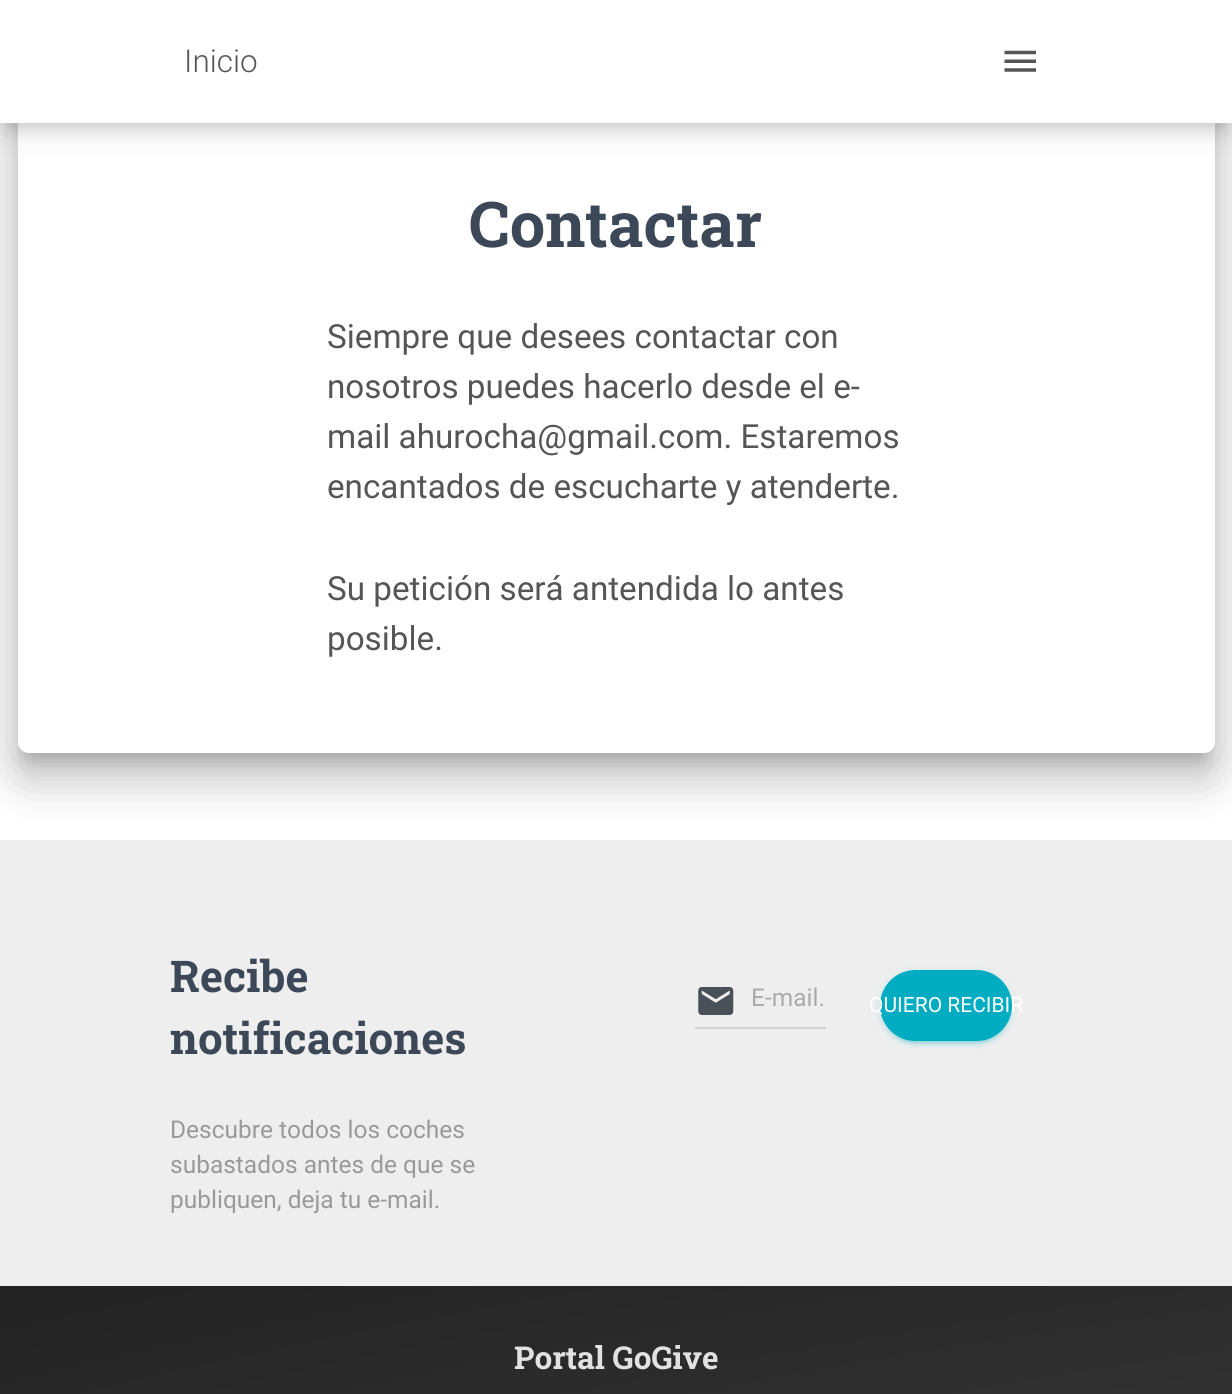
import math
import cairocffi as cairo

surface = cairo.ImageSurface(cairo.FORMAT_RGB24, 1232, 1394)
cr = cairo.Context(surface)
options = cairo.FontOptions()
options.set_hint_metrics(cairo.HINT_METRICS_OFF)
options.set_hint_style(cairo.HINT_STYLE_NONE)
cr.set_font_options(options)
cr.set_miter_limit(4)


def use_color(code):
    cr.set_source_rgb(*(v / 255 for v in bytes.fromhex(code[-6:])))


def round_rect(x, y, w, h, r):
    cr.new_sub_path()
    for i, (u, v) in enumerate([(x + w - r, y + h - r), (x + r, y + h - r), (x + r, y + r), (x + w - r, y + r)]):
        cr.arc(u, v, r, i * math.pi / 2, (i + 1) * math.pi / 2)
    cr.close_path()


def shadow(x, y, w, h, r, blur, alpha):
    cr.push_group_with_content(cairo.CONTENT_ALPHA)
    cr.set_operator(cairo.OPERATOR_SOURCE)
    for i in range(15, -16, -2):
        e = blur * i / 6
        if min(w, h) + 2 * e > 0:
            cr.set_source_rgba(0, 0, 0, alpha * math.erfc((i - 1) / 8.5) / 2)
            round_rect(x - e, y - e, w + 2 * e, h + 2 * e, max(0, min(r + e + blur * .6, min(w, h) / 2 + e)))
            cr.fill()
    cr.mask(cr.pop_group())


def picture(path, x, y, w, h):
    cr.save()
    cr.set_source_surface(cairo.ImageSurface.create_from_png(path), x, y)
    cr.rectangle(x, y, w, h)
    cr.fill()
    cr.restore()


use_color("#ffffff")
cr.paint()
use_color("#000000")
shadow(26, 23, 1180, 735, 2, 9, 0.2)
use_color("#eeeeee")
cr.rectangle(0, 840, 1232, 446)
cr.fill()
use_color("#000000")
shadow(9, 2, 1214, 770, 19, 26, 0.12)
shadow(14, 25, 1204, 759, 14, 21, 0.14)
use_color("#ffffff")
cr.new_path()
cr.move_to(18, 0)
cr.line_to(1215, 0)
cr.line_to(1215, 742)
cr.curve_to(1215, 748, 1210, 753, 1204, 753)
cr.line_to(29, 753)
cr.curve_to(23, 753, 18, 748, 18, 742)
cr.close_path()
cr.fill()
use_color("#000000")
shadow(9, 21, 1214, 105, 0, 9, 0.15)
shadow(0, 7, 1232, 123, 0, 16, 0.12)
use_color("#ffffff")
cr.rectangle(0, 0, 1232, 123)
cr.fill()
cr.select_font_face("Roboto Light")
cr.set_font_size(31.5)
use_color("#555555")
cr.move_to(184, 72)
cr.show_text("Inicio")
picture("img1.png", 1004, 50, 32, 22)
cr.select_font_face("Roboto Slab", cairo.FONT_SLANT_NORMAL, cairo.FONT_WEIGHT_BOLD)
cr.set_font_size(63)
use_color("#3c4858")
cr.move_to(469, 247)
cr.show_text("Contactar")
cr.select_font_face("Roboto")
cr.set_font_size(33.25)
use_color("#555555")
cr.move_to(327, 348)
cr.show_text("Siempre que desees contactar con")
cr.move_to(327, 398)
cr.show_text("nosotros puedes hacerlo desde el e-")
cr.move_to(327, 448)
cr.show_text("mail ahurocha@gmail.com. Estaremos")
cr.move_to(327, 498)
cr.show_text("encantados de escucharte y atenderte.")
cr.move_to(327, 600)
cr.show_text("Su petición será antendida lo antes")
cr.move_to(327, 650)
cr.show_text("posible.")
cr.select_font_face("Roboto Slab", cairo.FONT_SLANT_NORMAL, cairo.FONT_WEIGHT_BOLD)
cr.set_font_size(43.75)
use_color("#3c4858")
cr.move_to(170, 992)
cr.show_text("Recibe")
cr.move_to(170, 1054)
cr.show_text("notificaciones")
cr.select_font_face("Roboto")
cr.set_font_size(24.5)
use_color("#999999")
cr.move_to(170, 1138)
cr.show_text("Descubre todos los coches")
cr.move_to(170, 1173)
cr.show_text("subastados antes de que se")
cr.move_to(170, 1208)
cr.show_text("publiquen, deja tu e-mail.")
picture("img2.png", 698, 987, 36, 28)
use_color("#aaaaaa")
cr.move_to(751, 1006)
cr.show_text("E-mail.")
use_color("#d2d2d2")
cr.rectangle(695, 1027, 131, 2)
cr.fill()
use_color("#00acc1")
shadow(880, 971, 132, 72, 36, 4.5, 0.12)
shadow(884, 978, 124, 65, 32.5, 1, 0.2)
shadow(880, 973, 132, 72, 36, 2, 0.14)
use_color("#00acc1")
round_rect(880, 970, 132, 71, 35.5)
cr.fill()
cr.set_font_size(21)
use_color("#ffffff")
cr.move_to(869, 1012)
cr.show_text("QUIERO RECIBIR")
gradient = cairo.RadialGradient(0, 0, 0, 0, 0, 1)
gradient.set_matrix(cairo.Matrix(1 / 4791, 0, 0, 1 / 969, -1 * 3388 / 4791, -1 * 1971 / 969))
gradient.add_color_stop_rgba(0, 0.345, 0.345, 0.345, 1)
gradient.add_color_stop_rgba(1, 0.137, 0.137, 0.137, 1)
cr.set_source(gradient)
cr.rectangle(0, 1286, 1232, 108)
cr.fill()
cr.select_font_face("Roboto Slab", cairo.FONT_SLANT_NORMAL, cairo.FONT_WEIGHT_BOLD)
cr.set_font_size(31.5)
use_color("#e1e1e1")
cr.move_to(514, 1369)
cr.show_text("Portal GoGive")
surface.write_to_png("result.png")
